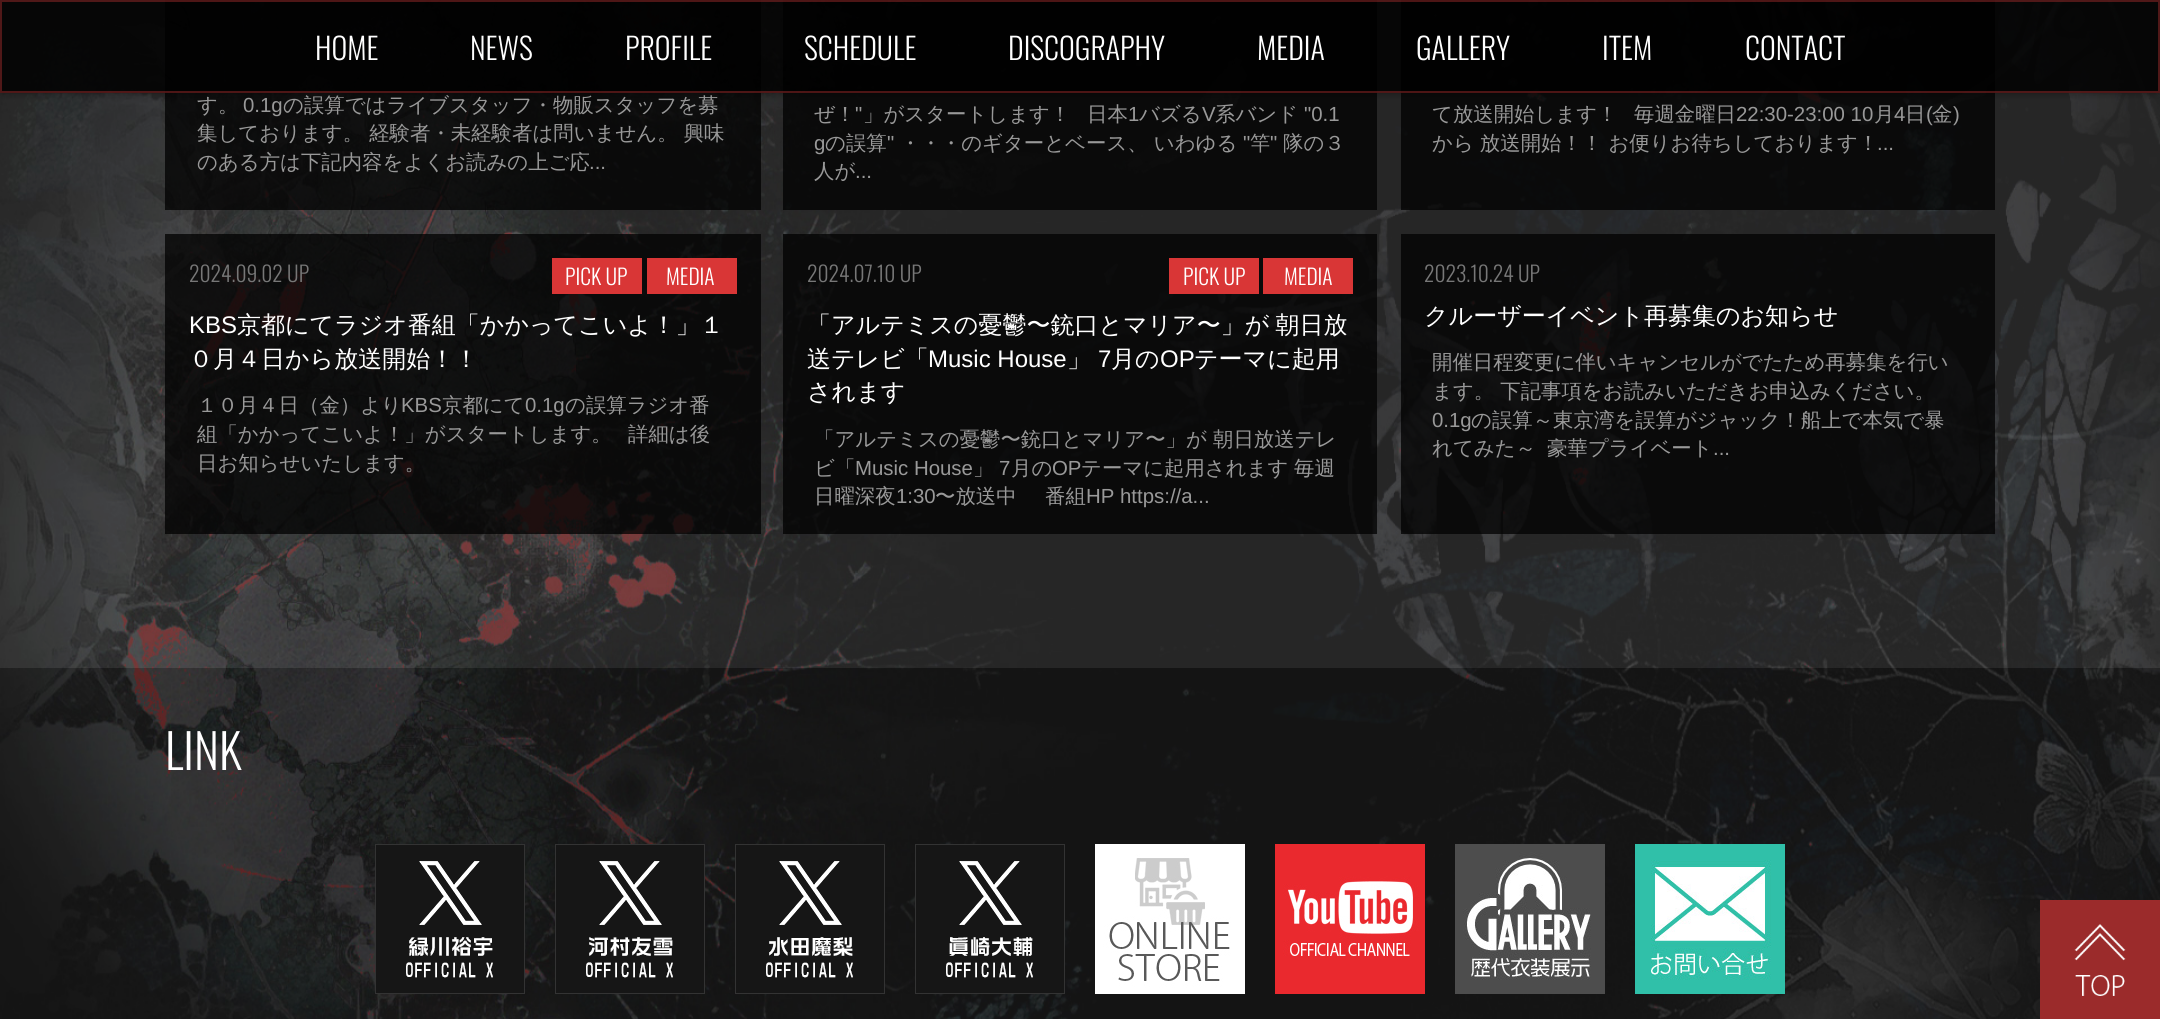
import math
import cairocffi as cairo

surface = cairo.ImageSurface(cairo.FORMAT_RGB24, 2160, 1019)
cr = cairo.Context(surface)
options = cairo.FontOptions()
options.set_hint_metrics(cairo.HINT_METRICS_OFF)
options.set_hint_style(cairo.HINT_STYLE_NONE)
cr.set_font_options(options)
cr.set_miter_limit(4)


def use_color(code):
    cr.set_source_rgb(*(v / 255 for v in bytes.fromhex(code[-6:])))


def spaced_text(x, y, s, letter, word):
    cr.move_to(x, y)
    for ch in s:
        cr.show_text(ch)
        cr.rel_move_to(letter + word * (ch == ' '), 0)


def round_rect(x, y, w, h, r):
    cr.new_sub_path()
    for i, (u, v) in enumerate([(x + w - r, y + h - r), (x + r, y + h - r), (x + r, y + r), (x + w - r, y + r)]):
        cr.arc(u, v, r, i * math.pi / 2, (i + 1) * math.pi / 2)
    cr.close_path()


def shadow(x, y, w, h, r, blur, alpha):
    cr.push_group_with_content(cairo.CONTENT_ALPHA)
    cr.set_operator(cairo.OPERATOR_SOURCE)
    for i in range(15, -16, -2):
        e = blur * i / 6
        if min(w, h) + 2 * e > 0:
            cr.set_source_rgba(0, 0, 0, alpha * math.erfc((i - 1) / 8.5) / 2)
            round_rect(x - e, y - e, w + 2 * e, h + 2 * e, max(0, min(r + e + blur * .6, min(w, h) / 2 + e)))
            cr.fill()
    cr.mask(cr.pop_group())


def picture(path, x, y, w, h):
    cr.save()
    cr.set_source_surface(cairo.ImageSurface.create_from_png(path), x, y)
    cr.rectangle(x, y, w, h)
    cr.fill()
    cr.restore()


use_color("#ffffff")
cr.paint()
picture("img1.png", 0, 0, 2160, 1019)
cr.set_source_rgba(1, 1, 1, 0.15)
cr.rectangle(0, 0, 2160, 668)
cr.fill()
cr.set_source_rgba(0, 0, 0, 0.75)
cr.rectangle(165, 0, 596, 210)
cr.fill()
cr.rectangle(783, 0, 594, 210)
cr.fill()
cr.rectangle(1401, 0, 594, 210)
cr.fill()
cr.save()
cr.rectangle(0, 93, 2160, 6)
cr.clip()
use_color("#000000")
shadow(3, 5, 2154, 87, 0, 4, 0.5)
cr.restore()
cr.set_source_rgba(0, 0, 0, 0.85)
cr.rectangle(0, 0, 2160, 93)
cr.fill()
cr.rectangle(1, 1, 2158, 91)
cr.set_source_rgba(0.608, 0.169, 0.169, 0.5)
cr.stroke()
cr.select_font_face("Oswald Light")
cr.set_font_size(30)
use_color("#ffffff")
cr.move_to(315, 60)
cr.show_text("HOME")
cr.move_to(470, 60)
cr.show_text("NEWS")
cr.move_to(625, 60)
cr.show_text("PROFILE")
cr.move_to(804, 60)
cr.show_text("SCHEDULE")
cr.move_to(1008, 60)
cr.show_text("DISCOGRAPHY")
cr.move_to(1257, 60)
cr.show_text("MEDIA")
cr.move_to(1416, 60)
cr.show_text("GALLERY")
cr.move_to(1602, 60)
cr.show_text("ITEM")
cr.move_to(1745, 60)
cr.show_text("CONTACT")
cr.select_font_face("WenQuanYi Zen Hei Medium")
cr.set_font_size(20.4)
use_color("#999999")
cr.move_to(197, 112)
cr.show_text("す。")
cr.select_font_face("Liberation Sans")
cr.move_to(243, 112)
cr.show_text("0.1g")
cr.select_font_face("WenQuanYi Zen Hei Medium")
cr.move_to(283, 112)
cr.show_text("の誤算ではライブスタッフ・物販スタッフを募")
cr.move_to(197, 140)
cr.show_text("集しております。 経験者・未経験者は問いません。 興味")
cr.move_to(197, 169)
cr.show_text("のある方は下記内容をよくお読みの上ご応")
cr.select_font_face("Liberation Sans")
cr.move_to(589, 169)
cr.show_text("...")
cr.select_font_face("WenQuanYi Zen Hei Medium")
cr.move_to(814, 121)
cr.show_text("ぜ！")
cr.select_font_face("Liberation Sans")
cr.move_to(855, 121)
cr.show_text("\"")
cr.select_font_face("WenQuanYi Zen Hei Medium")
cr.move_to(863, 121)
cr.show_text("」がスタートします！")
cr.move_to(1087, 121)
cr.show_text("日本")
cr.select_font_face("Liberation Sans")
cr.move_to(1128, 121)
cr.show_text("1")
cr.select_font_face("WenQuanYi Zen Hei Medium")
cr.move_to(1139, 121)
cr.show_text("バズる")
cr.select_font_face("Liberation Sans")
cr.move_to(1202, 121)
cr.show_text("V")
cr.select_font_face("WenQuanYi Zen Hei Medium")
cr.move_to(1215, 121)
cr.show_text("系バンド")
cr.select_font_face("Liberation Sans")
cr.move_to(1304, 121)
cr.show_text("\"0.1")
cr.select_font_face("WenQuanYi Zen Hei Medium")
cr.move_to(825, 150)
cr.show_text("の誤算")
cr.select_font_face("Liberation Sans")
cr.move_to(887, 150)
cr.show_text("\"")
cr.select_font_face("WenQuanYi Zen Hei Medium")
cr.move_to(900, 150)
cr.show_text("・・・のギターとベース、 いわゆる")
cr.select_font_face("Liberation Sans")
cr.move_to(1243, 150)
cr.show_text("\"")
cr.select_font_face("WenQuanYi Zen Hei Medium")
cr.move_to(1250, 150)
cr.show_text("竿")
cr.select_font_face("Liberation Sans")
cr.move_to(1270, 150)
cr.show_text("\"")
cr.select_font_face("WenQuanYi Zen Hei Medium")
cr.move_to(1283, 150)
cr.show_text("隊の３")
cr.select_font_face("Liberation Sans")
cr.move_to(814, 150)
cr.show_text("g")
cr.select_font_face("WenQuanYi Zen Hei Medium")
cr.move_to(814, 178)
cr.show_text("人が")
cr.select_font_face("Liberation Sans")
cr.move_to(855, 178)
cr.show_text("...")
cr.select_font_face("WenQuanYi Zen Hei Medium")
cr.move_to(1432, 121)
cr.show_text("て放送開始します！")
cr.move_to(1634, 121)
cr.show_text("毎週金曜日")
cr.select_font_face("Liberation Sans")
cr.move_to(1736, 121)
cr.show_text("22:30-23:00 10")
cr.select_font_face("WenQuanYi Zen Hei Medium")
cr.move_to(1874, 121)
cr.show_text("月")
cr.select_font_face("Liberation Sans")
cr.move_to(1894, 121)
cr.show_text("4")
cr.select_font_face("WenQuanYi Zen Hei Medium")
cr.move_to(1905, 121)
cr.show_text("日")
cr.select_font_face("Liberation Sans")
cr.move_to(1926, 121)
cr.show_text("(")
cr.select_font_face("WenQuanYi Zen Hei Medium")
cr.move_to(1932, 121)
cr.show_text("金")
cr.select_font_face("Liberation Sans")
cr.move_to(1953, 121)
cr.show_text(")")
cr.select_font_face("WenQuanYi Zen Hei Medium")
cr.move_to(1432, 150)
cr.show_text("から 放送開始！！ お便りお待ちしております！")
cr.select_font_face("Liberation Sans")
cr.move_to(1877, 150)
cr.show_text("...")
cr.set_source_rgba(0, 0, 0, 0.75)
cr.rectangle(165, 234, 596, 300)
cr.fill()
cr.select_font_face("Oswald Light")
cr.set_font_size(21.5)
use_color("#777777")
cr.move_to(189, 282)
cr.show_text("2024.09.02 UP")
use_color("#d93636")
cr.rectangle(552, 258, 90, 36)
cr.fill()
use_color("#ffffff")
cr.move_to(565, 285)
cr.show_text("PICK UP")
use_color("#d93636")
cr.rectangle(647, 258, 90, 36)
cr.fill()
use_color("#ffffff")
cr.move_to(666, 285)
cr.show_text("MEDIA")
cr.select_font_face("Liberation Sans")
cr.set_font_size(24)
cr.move_to(189, 333)
cr.show_text("KBS")
cr.select_font_face("WenQuanYi Zen Hei Medium")
cr.move_to(237, 333)
cr.show_text("京都にてラジオ番組「かかってこいよ！」１")
cr.move_to(189, 367)
cr.show_text("０月４日から放送開始！！")
cr.set_font_size(20.4)
use_color("#999999")
cr.move_to(197, 412)
cr.show_text("１０月４日（金）より")
cr.select_font_face("Liberation Sans")
cr.move_to(401, 412)
cr.show_text("KBS")
cr.select_font_face("WenQuanYi Zen Hei Medium")
cr.move_to(442, 412)
cr.show_text("京都にて")
cr.select_font_face("Liberation Sans")
cr.move_to(525, 412)
cr.show_text("0.1g")
cr.select_font_face("WenQuanYi Zen Hei Medium")
cr.move_to(565, 412)
cr.show_text("の誤算ラジオ番")
cr.move_to(197, 441)
cr.show_text("組「かかってこいよ！」がスタートします。")
cr.move_to(628, 441)
cr.show_text("詳細は後")
cr.move_to(197, 470)
cr.show_text("日お知らせいたします。")
cr.set_source_rgba(0, 0, 0, 0.75)
cr.rectangle(783, 234, 594, 300)
cr.fill()
cr.select_font_face("Oswald Light")
cr.set_font_size(21.5)
use_color("#777777")
cr.move_to(807, 282)
cr.show_text("2024.07.10 UP")
use_color("#d93636")
cr.rectangle(1169, 258, 90, 36)
cr.fill()
use_color("#ffffff")
cr.move_to(1183, 285)
cr.show_text("PICK UP")
use_color("#d93636")
cr.rectangle(1263, 258, 90, 36)
cr.fill()
use_color("#ffffff")
cr.move_to(1284, 285)
cr.show_text("MEDIA")
cr.select_font_face("WenQuanYi Zen Hei Medium")
cr.set_font_size(24)
spaced_text(807, 333, "「アルテミスの憂鬱〜銃口とマリア〜」が 朝日放", 0, -1)
cr.move_to(807, 367)
cr.show_text("送テレビ「")
cr.select_font_face("Liberation Sans")
cr.move_to(928, 367)
cr.show_text("Music House")
cr.select_font_face("WenQuanYi Zen Hei Medium")
cr.move_to(1067, 367)
cr.show_text("」")
cr.select_font_face("Liberation Sans")
cr.move_to(1098, 367)
cr.show_text("7")
cr.select_font_face("WenQuanYi Zen Hei Medium")
cr.move_to(1111, 367)
cr.show_text("月の")
cr.select_font_face("Liberation Sans")
cr.move_to(1160, 367)
cr.show_text("OP")
cr.select_font_face("WenQuanYi Zen Hei Medium")
cr.move_to(1194, 367)
cr.show_text("テーマに起用")
cr.move_to(807, 400)
cr.show_text("されます")
cr.set_font_size(20.4)
use_color("#999999")
cr.move_to(814, 446)
cr.show_text("「アルテミスの憂鬱〜銃口とマリア〜」が 朝日放送テレ")
cr.move_to(814, 475)
cr.show_text("ビ「")
cr.select_font_face("Liberation Sans")
cr.move_to(855, 475)
cr.show_text("Music House")
cr.select_font_face("WenQuanYi Zen Hei Medium")
cr.move_to(973, 475)
cr.show_text("」")
cr.select_font_face("Liberation Sans")
cr.move_to(999, 475)
cr.show_text("7")
cr.select_font_face("WenQuanYi Zen Hei Medium")
cr.move_to(1011, 475)
cr.show_text("月の")
cr.select_font_face("Liberation Sans")
cr.move_to(1052, 475)
cr.show_text("OP")
cr.select_font_face("WenQuanYi Zen Hei Medium")
cr.move_to(1081, 475)
cr.show_text("テーマに起用されます")
cr.move_to(1294, 475)
cr.show_text("毎週")
cr.move_to(814, 503)
cr.show_text("日曜深夜")
cr.select_font_face("Liberation Sans")
cr.move_to(896, 503)
cr.show_text("1:30")
cr.select_font_face("WenQuanYi Zen Hei Medium")
cr.move_to(935, 503)
cr.show_text("〜放送中")
cr.move_to(1045, 503)
cr.show_text("番組")
cr.select_font_face("Liberation Sans")
cr.move_to(1086, 503)
cr.show_text("HP https://a...")
cr.set_source_rgba(0, 0, 0, 0.75)
cr.rectangle(1401, 234, 594, 300)
cr.fill()
cr.select_font_face("Oswald Light")
cr.set_font_size(21.5)
use_color("#777777")
cr.move_to(1424, 282)
cr.show_text("2023.10.24 UP")
cr.select_font_face("WenQuanYi Zen Hei Medium")
cr.set_font_size(24)
use_color("#ffffff")
cr.move_to(1424, 324)
cr.show_text("クルーザーイベント再募集のお知らせ")
cr.set_font_size(20.4)
use_color("#999999")
cr.move_to(1432, 369)
cr.show_text("開催日程変更に伴いキャンセルがでたため再募集を行い")
cr.move_to(1432, 398)
cr.show_text("ます。 下記事項をお読みいただきお申込みください。")
cr.select_font_face("Liberation Sans")
cr.move_to(1432, 427)
cr.show_text("0.1g")
cr.select_font_face("WenQuanYi Zen Hei Medium")
cr.move_to(1471, 427)
cr.show_text("の誤算～東京湾を誤算がジャック！船上で本気で暴")
cr.move_to(1432, 455)
cr.show_text("れてみた～")
cr.move_to(1547, 455)
cr.show_text("豪華プライベート")
cr.select_font_face("Liberation Sans")
cr.move_to(1713, 455)
cr.show_text("...")
cr.set_source_rgba(0.392, 0.392, 0.392, 0.2)
cr.rectangle(0, 668, 2160, 351)
cr.fill()
cr.select_font_face("Oswald Light")
cr.set_font_size(48)
use_color("#ffffff")
cr.move_to(165, 770)
cr.show_text("LINK")
picture("img2.png", 375, 844, 150, 150)
picture("img3.png", 555, 844, 150, 150)
picture("img4.png", 735, 844, 150, 150)
picture("img5.png", 915, 844, 150, 150)
picture("img6.png", 1095, 844, 150, 150)
picture("img7.png", 1275, 844, 150, 150)
picture("img8.png", 1455, 844, 150, 150)
picture("img9.png", 1635, 844, 150, 150)
picture("img10.png", 2040, 900, 120, 119)
surface.write_to_png("result.png")
